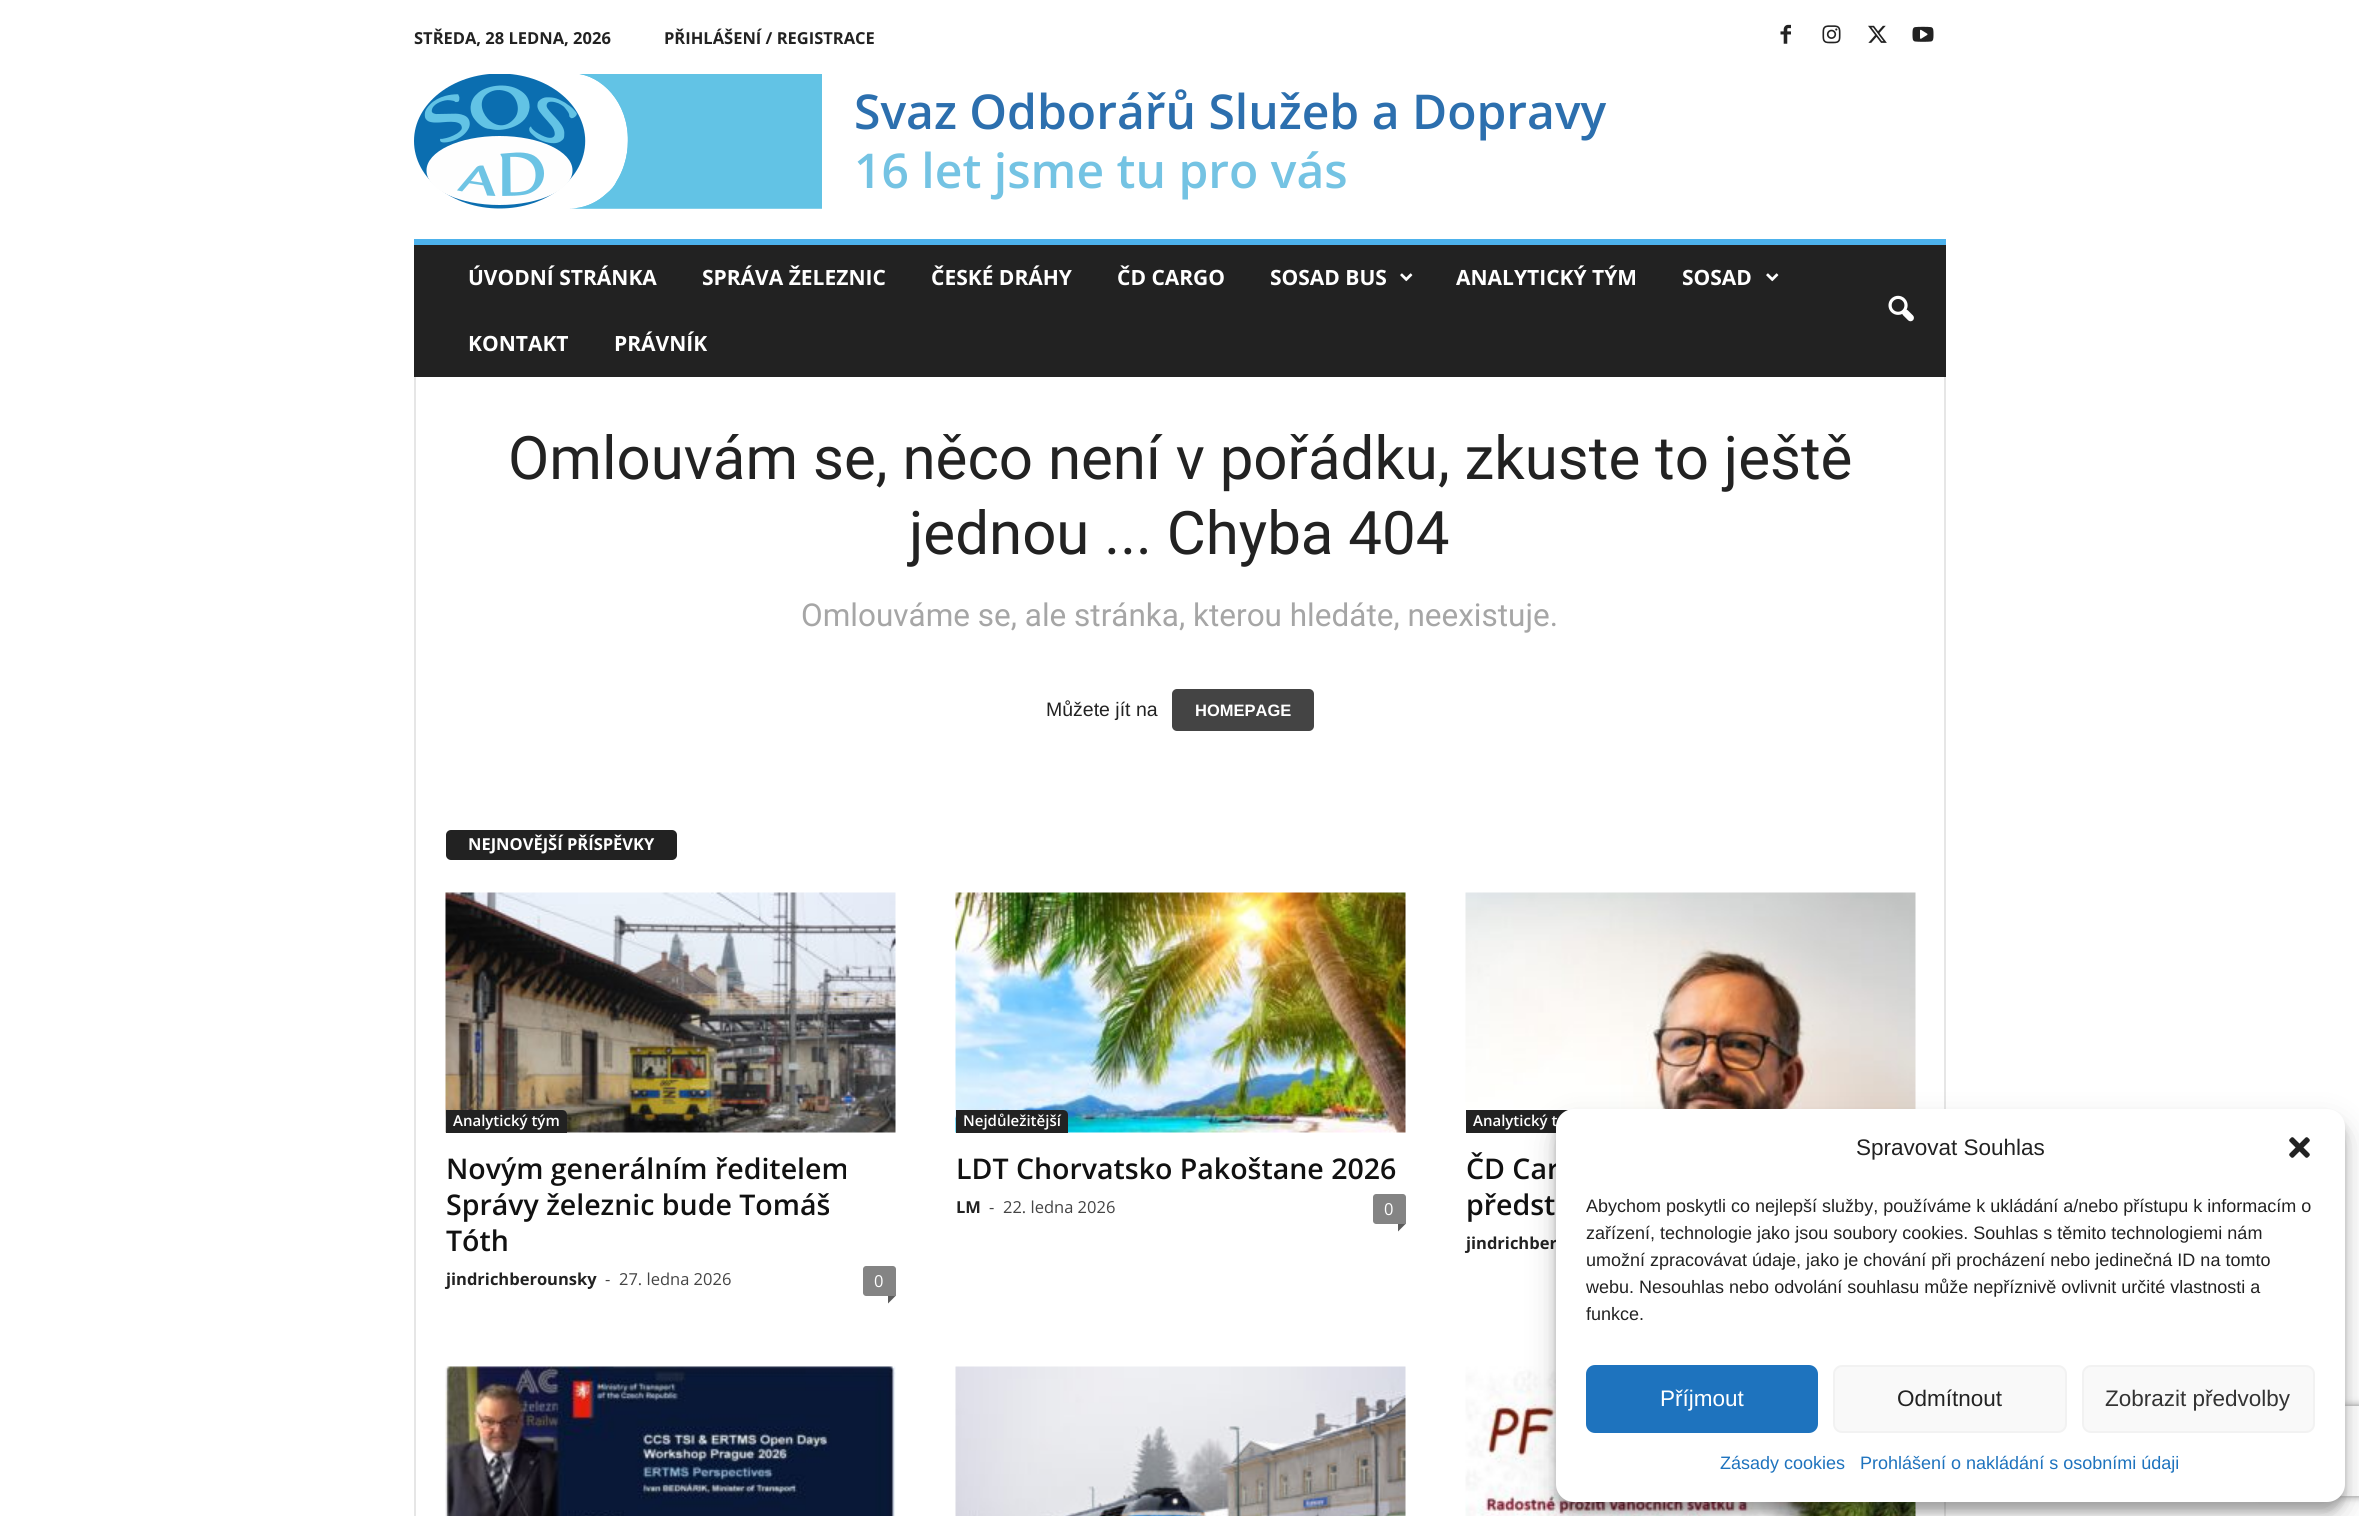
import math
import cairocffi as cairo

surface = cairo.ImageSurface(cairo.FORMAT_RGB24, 2359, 1516)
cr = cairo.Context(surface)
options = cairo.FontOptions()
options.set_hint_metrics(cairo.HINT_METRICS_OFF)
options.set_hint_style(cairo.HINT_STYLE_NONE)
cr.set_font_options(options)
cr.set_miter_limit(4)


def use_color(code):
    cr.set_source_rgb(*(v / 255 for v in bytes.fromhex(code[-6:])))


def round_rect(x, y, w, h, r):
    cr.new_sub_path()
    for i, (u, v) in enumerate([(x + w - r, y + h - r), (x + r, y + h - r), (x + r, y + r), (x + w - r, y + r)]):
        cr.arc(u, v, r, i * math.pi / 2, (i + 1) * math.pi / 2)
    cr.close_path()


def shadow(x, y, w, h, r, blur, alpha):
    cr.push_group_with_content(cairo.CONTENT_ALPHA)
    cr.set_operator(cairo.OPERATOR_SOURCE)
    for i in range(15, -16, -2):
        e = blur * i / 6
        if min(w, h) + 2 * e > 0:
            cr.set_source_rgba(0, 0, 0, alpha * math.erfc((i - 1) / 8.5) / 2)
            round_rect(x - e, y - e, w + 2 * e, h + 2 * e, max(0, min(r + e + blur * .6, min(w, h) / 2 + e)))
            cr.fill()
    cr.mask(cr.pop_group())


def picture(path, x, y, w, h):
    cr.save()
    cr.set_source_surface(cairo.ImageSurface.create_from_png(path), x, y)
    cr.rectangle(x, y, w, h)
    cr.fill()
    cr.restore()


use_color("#ffffff")
cr.paint()
cr.select_font_face("Open Sans", cairo.FONT_SLANT_NORMAL, cairo.FONT_WEIGHT_BOLD)
cr.set_font_size(16.5)
use_color("#222222")
cr.move_to(414, 44)
cr.show_text("STŘEDA, 28 LEDNA, 2026")
cr.move_to(664, 44)
cr.show_text("PŘIHLÁŠENÍ / REGISTRACE")
picture("img1.png", 1780, 24, 11, 20)
picture("img2.png", 1822, 25, 19, 19)
picture("img3.png", 1868, 25, 19, 18)
picture("img4.png", 1912, 26, 22, 16)
picture("img5.png", 414, 74, 408, 135)
cr.select_font_face("Open Sans SemiBold")
cr.set_font_size(48)
use_color("#2c6fae")
cr.move_to(854, 129)
cr.show_text("Svaz Odborářů Služeb a Dopravy")
use_color("#74c3e3")
cr.move_to(854, 188)
cr.show_text("16 let jsme tu pro vás")
use_color("#222222")
cr.rectangle(414, 245, 1532, 132)
cr.fill()
use_color("#4db2ec")
cr.rectangle(414, 239, 1532, 6)
cr.fill()
cr.select_font_face("Open Sans", cairo.FONT_SLANT_NORMAL, cairo.FONT_WEIGHT_BOLD)
cr.set_font_size(21)
use_color("#ffffff")
cr.move_to(468, 285)
cr.show_text("ÚVODNÍ STRÁNKA")
cr.move_to(702, 285)
cr.show_text("SPRÁVA ŽELEZNIC")
cr.move_to(931, 285)
cr.show_text("ČESKÉ DRÁHY")
cr.move_to(1117, 285)
cr.show_text("ČD CARGO")
cr.move_to(1270, 285)
cr.show_text("SOSAD BUS")
picture("img6.png", 1400, 273, 13, 9)
cr.move_to(1456, 285)
cr.show_text("ANALYTICKÝ TÝM")
cr.move_to(1682, 285)
cr.show_text("SOSAD")
picture("img6.png", 1766, 273, 13, 9)
cr.move_to(468, 351)
cr.show_text("KONTAKT")
cr.move_to(614, 351)
cr.show_text("PRÁVNÍK")
picture("img7.png", 1888, 295, 26, 27)
use_color("#e6e6e6")
cr.rectangle(414, 377, 2, 1139)
cr.fill()
cr.select_font_face("Roboto")
cr.set_font_size(60)
use_color("#222222")
cr.move_to(508, 479)
cr.show_text("Omlouvám se, něco není v pořádku, zkuste to ještě")
cr.move_to(909, 554)
cr.show_text("jednou ... Chyba 404")
cr.set_font_size(31.5)
use_color("#a6a6a6")
cr.move_to(801, 626)
cr.show_text("Omlouváme se, ale stránka, kterou hledáte, neexistuje.")
cr.select_font_face("Liberation Sans")
cr.set_font_size(19.5)
use_color("#222222")
cr.move_to(1046, 716)
cr.show_text("Můžete jít na")
use_color("#444444")
round_rect(1172, 689, 142, 42, 5)
cr.fill()
cr.select_font_face("Liberation Sans", cairo.FONT_SLANT_NORMAL, cairo.FONT_WEIGHT_BOLD)
cr.set_font_size(16.5)
use_color("#ffffff")
cr.move_to(1195, 716)
cr.show_text("HOMEPAGE")
use_color("#222222")
round_rect(446, 830, 231, 30, 5)
cr.fill()
cr.select_font_face("Open Sans", cairo.FONT_SLANT_NORMAL, cairo.FONT_WEIGHT_BOLD)
use_color("#ffffff")
cr.move_to(468, 850)
cr.show_text("NEJNOVĚJŠÍ PŘÍSPĚVKY")
picture("img8.png", 445, 892, 451, 241)
use_color("#222222")
cr.new_path()
cr.move_to(446, 1110)
cr.line_to(562, 1110)
cr.curve_to(565, 1110, 567, 1112, 567, 1115)
cr.line_to(567, 1133)
cr.line_to(446, 1133)
cr.close_path()
cr.fill()
cr.select_font_face("Open Sans SemiBold")
cr.set_font_size(15)
use_color("#ffffff")
cr.move_to(453, 1126)
cr.show_text("Analytický tým")
cr.set_font_size(28.5)
use_color("#111111")
cr.move_to(446, 1179)
cr.show_text("Novým generálním ředitelem")
cr.move_to(446, 1215)
cr.show_text("Správy železnic bude Tomáš")
cr.move_to(446, 1251)
cr.show_text("Tóth")
cr.select_font_face("Open Sans", cairo.FONT_SLANT_NORMAL, cairo.FONT_WEIGHT_BOLD)
cr.set_font_size(16.5)
use_color("#222222")
cr.move_to(446, 1285)
cr.show_text("jindrichberounsky")
cr.select_font_face("Open Sans")
use_color("#444444")
cr.move_to(605, 1285)
cr.show_text("-")
cr.move_to(619, 1285)
cr.show_text("27. ledna 2026")
use_color("#848484")
cr.new_path()
cr.move_to(866, 1266)
cr.line_to(893, 1266)
cr.curve_to(894.5, 1266, 896, 1267.5, 896, 1269)
cr.line_to(896, 1296)
cr.line_to(866, 1296)
cr.curve_to(864.5, 1296, 863, 1294.5, 863, 1293)
cr.line_to(863, 1269)
cr.curve_to(863, 1267.5, 864.5, 1266, 866, 1266)
cr.close_path()
cr.fill()
use_color("#ffffff")
cr.move_to(874, 1287)
cr.show_text("0")
use_color("#5b5b5b")
cr.new_path()
cr.move_to(888, 1296)
cr.line_to(895.5, 1296)
cr.line_to(888, 1303.5)
cr.close_path()
cr.fill()
picture("img9.png", 955, 892, 451, 241)
use_color("#222222")
cr.new_path()
cr.move_to(956, 1110)
cr.line_to(1063, 1110)
cr.curve_to(1066, 1110, 1068, 1112, 1068, 1115)
cr.line_to(1068, 1133)
cr.line_to(956, 1133)
cr.close_path()
cr.fill()
cr.select_font_face("Open Sans SemiBold")
cr.set_font_size(15)
use_color("#ffffff")
cr.move_to(963, 1126)
cr.show_text("Nejdůležitější")
cr.set_font_size(28.5)
use_color("#111111")
cr.move_to(956, 1179)
cr.show_text("LDT Chorvatsko Pakoštane 2026")
cr.select_font_face("Open Sans", cairo.FONT_SLANT_NORMAL, cairo.FONT_WEIGHT_BOLD)
cr.set_font_size(16.5)
use_color("#222222")
cr.move_to(956, 1213)
cr.show_text("LM")
cr.select_font_face("Open Sans")
use_color("#444444")
cr.move_to(989, 1213)
cr.show_text("-")
cr.move_to(1003, 1213)
cr.show_text("22. ledna 2026")
use_color("#848484")
cr.new_path()
cr.move_to(1376, 1194)
cr.line_to(1403, 1194)
cr.curve_to(1404.5, 1194, 1406, 1195.5, 1406, 1197)
cr.line_to(1406, 1224)
cr.line_to(1376, 1224)
cr.curve_to(1374.5, 1224, 1373, 1222.5, 1373, 1221)
cr.line_to(1373, 1197)
cr.curve_to(1373, 1195.5, 1374.5, 1194, 1376, 1194)
cr.close_path()
cr.fill()
use_color("#ffffff")
cr.move_to(1384, 1215)
cr.show_text("0")
use_color("#5b5b5b")
cr.new_path()
cr.move_to(1398, 1224)
cr.line_to(1405.5, 1224)
cr.line_to(1398, 1231.5)
cr.close_path()
cr.fill()
picture("img10.png", 1465, 892, 451, 241)
use_color("#222222")
cr.rectangle(1466, 1110, 102, 23)
cr.fill()
cr.select_font_face("Open Sans SemiBold")
cr.set_font_size(15)
use_color("#ffffff")
cr.move_to(1473, 1126)
cr.show_text("Analytický t")
cr.set_font_size(28.5)
use_color("#111111")
cr.move_to(1466, 1179)
cr.show_text("ČD Car")
cr.move_to(1466, 1215)
cr.show_text("předst")
cr.select_font_face("Open Sans", cairo.FONT_SLANT_NORMAL, cairo.FONT_WEIGHT_BOLD)
cr.set_font_size(16.5)
use_color("#222222")
cr.move_to(1466, 1249)
cr.show_text("jindrichber")
picture("img11.png", 445, 1366, 451, 150)
picture("img12.png", 955, 1366, 451, 150)
picture("img13.png", 1465, 1366, 451, 150)
use_color("#e6e6e6")
cr.rectangle(1944, 377, 2, 1139)
cr.fill()
use_color("#000000")
shadow(1556, 1118, 789, 393, 18, 4.5, 0.23)
shadow(1556, 1124, 789, 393, 18, 15, 0.19)
cr.save()
cr.set_fill_rule(cairo.FILL_RULE_EVEN_ODD)
cr.new_path()
cr.move_to(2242, 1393)
cr.line_to(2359, 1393)
cr.line_to(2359, 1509)
cr.line_to(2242, 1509)
cr.close_path()
cr.move_to(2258, 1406)
cr.line_to(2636, 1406)
cr.curve_to(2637.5, 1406, 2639, 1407.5, 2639, 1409)
cr.line_to(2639, 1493)
cr.curve_to(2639, 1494.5, 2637.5, 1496, 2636, 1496)
cr.line_to(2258, 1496)
cr.curve_to(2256.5, 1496, 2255, 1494.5, 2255, 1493)
cr.line_to(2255, 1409)
cr.curve_to(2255, 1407.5, 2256.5, 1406, 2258, 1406)
cr.close_path()
cr.clip()
use_color("#808080")
shadow(2255, 1406, 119, 90, 3, 4, 1)
cr.restore()
use_color("#ffffff")
round_rect(1556, 1109, 789, 393, 18)
cr.fill()
cr.select_font_face("Liberation Sans")
cr.set_font_size(22.5)
use_color("#222222")
cr.move_to(1856, 1155)
cr.show_text("Spravovat Souhlas")
picture("img14.png", 2289, 1137, 21, 21)
cr.set_font_size(18)
cr.move_to(1586, 1212)
cr.show_text("Abychom poskytli co nejlepší služby, používáme k ukládání a/nebo přístupu k informacím o")
cr.move_to(1586, 1239)
cr.show_text("zařízení, technologie jako jsou soubory cookies. Souhlas s těmito technologiemi nám")
cr.move_to(1586, 1266)
cr.show_text("umožní zpracovávat údaje, jako je chování při procházení nebo jedinečná ID na tomto")
cr.move_to(1586, 1293)
cr.show_text("webu. Nesouhlas nebo odvolání souhlasu může nepříznivě ovlivnit určité vlastnosti a")
cr.move_to(1586, 1320)
cr.show_text("funkce.")
use_color("#1e73be")
round_rect(1587, 1366, 230, 66, 8)
cr.fill_preserve()
cr.stroke()
cr.set_font_size(22.5)
use_color("#ffffff")
cr.move_to(1660, 1406)
cr.show_text("Příjmout")
use_color("#f9f9f9")
round_rect(1834, 1366, 232, 66, 8)
cr.fill_preserve()
use_color("#f2f2f2")
cr.stroke()
use_color("#222222")
cr.move_to(1897, 1406)
cr.show_text("Odmítnout")
use_color("#f9f9f9")
round_rect(2083, 1366, 231, 66, 8)
cr.fill_preserve()
use_color("#f2f2f2")
cr.stroke()
use_color("#333333")
cr.move_to(2105, 1406)
cr.show_text("Zobrazit předvolby")
cr.set_font_size(18)
use_color("#1e73be")
cr.move_to(1720, 1469)
cr.show_text("Zásady cookies")
cr.move_to(1860, 1469)
cr.show_text("Prohlášení o nakládání s osobními údaji")
surface.write_to_png("result.png")
